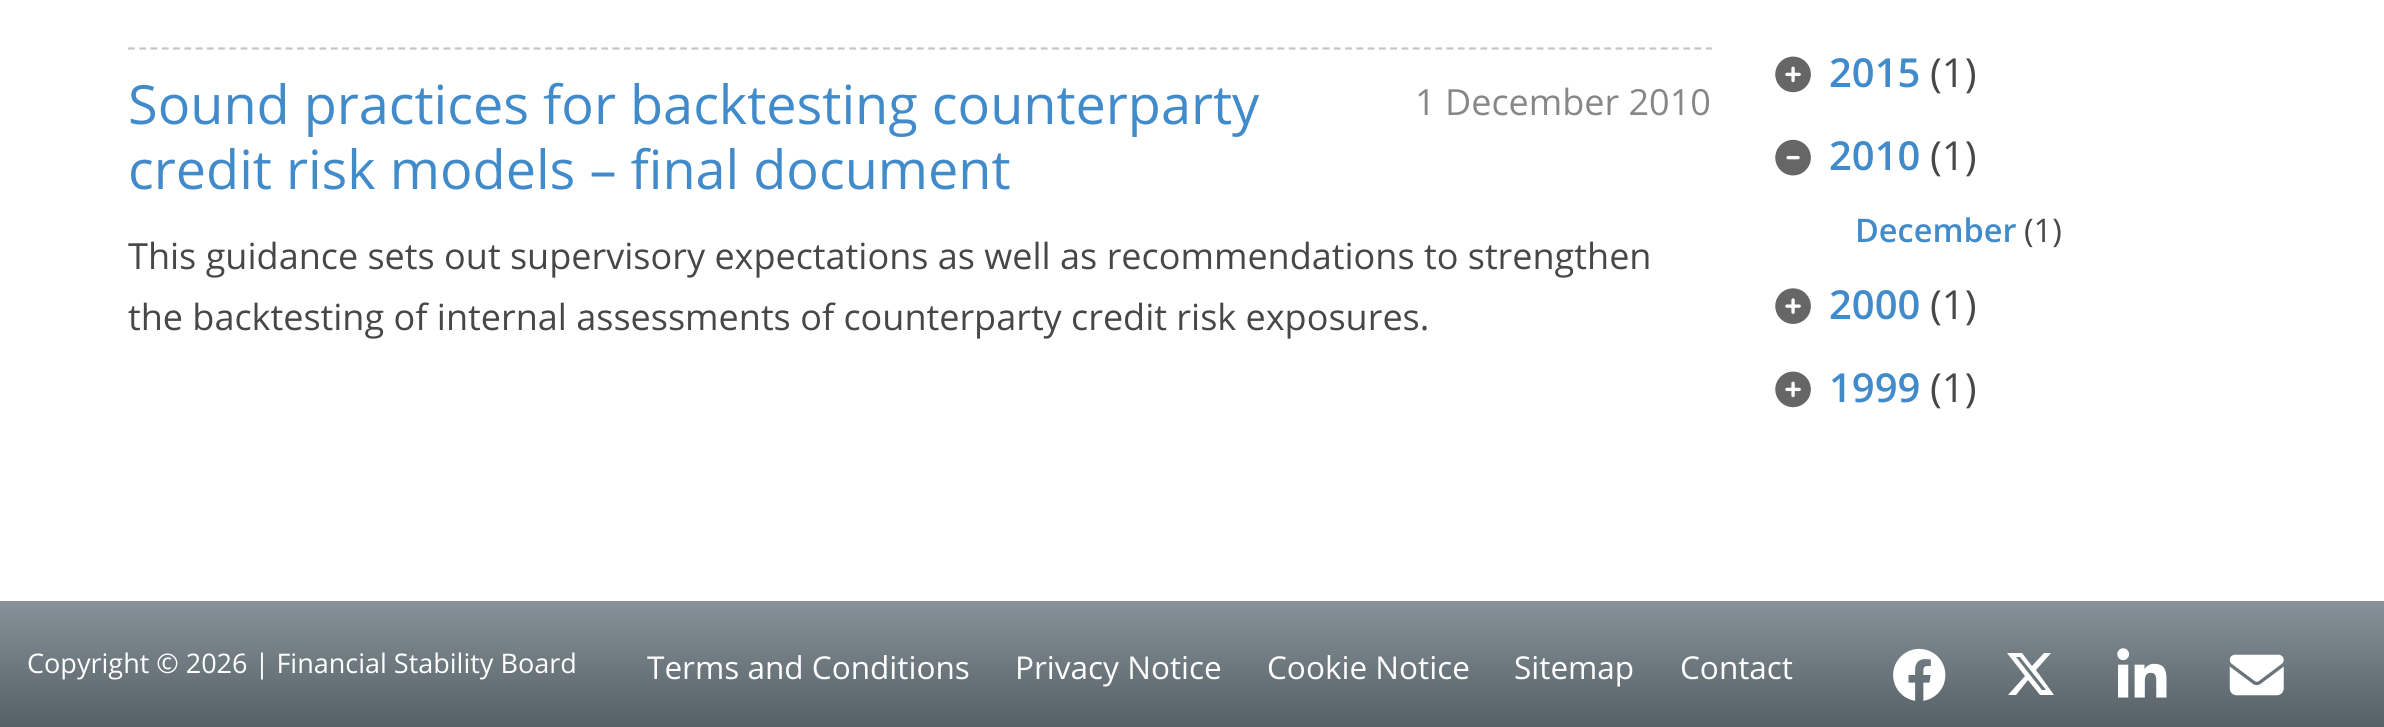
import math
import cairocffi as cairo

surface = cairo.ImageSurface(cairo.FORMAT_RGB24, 2384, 727)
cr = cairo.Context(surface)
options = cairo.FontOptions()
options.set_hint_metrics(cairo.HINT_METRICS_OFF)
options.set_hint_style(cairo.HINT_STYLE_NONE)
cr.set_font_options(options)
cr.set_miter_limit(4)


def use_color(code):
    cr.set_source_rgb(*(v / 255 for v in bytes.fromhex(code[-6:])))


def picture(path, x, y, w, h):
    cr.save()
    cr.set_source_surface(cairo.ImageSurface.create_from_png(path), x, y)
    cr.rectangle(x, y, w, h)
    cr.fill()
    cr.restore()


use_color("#ffffff")
cr.paint()
cr.new_path()
cr.move_to(128, 48.5)
cr.line_to(1712, 48.5)
use_color("#c5c5c5")
cr.set_line_width(2.2)
cr.set_dash([6.75, 4.52])
cr.stroke()
cr.select_font_face("Open Sans")
cr.set_font_size(54)
use_color("#428bca")
cr.move_to(128, 124)
cr.show_text("Sound practices for backtesting counterparty")
cr.move_to(128, 189)
cr.show_text("credit risk models – final document")
cr.set_font_size(36)
use_color("#878787")
cr.move_to(1415, 115)
cr.show_text("1 December 2010")
use_color("#474747")
cr.move_to(128, 269)
cr.show_text("This guidance sets out supervisory expectations as well as recommendations to strengthen")
cr.move_to(128, 330)
cr.show_text("the backtesting of internal assessments of counterparty credit risk exposures.")
picture("img1.png", 1775, 56, 36, 37)
cr.select_font_face("Open Sans SemiBold")
cr.set_font_size(40)
use_color("#428bca")
cr.move_to(1829, 87)
cr.show_text("2015")
cr.select_font_face("Open Sans")
use_color("#474747")
cr.move_to(1930, 87)
cr.show_text("(1)")
picture("img2.png", 1775, 139, 36, 37)
cr.select_font_face("Open Sans SemiBold")
use_color("#428bca")
cr.move_to(1829, 170)
cr.show_text("2010")
cr.select_font_face("Open Sans")
use_color("#474747")
cr.move_to(1930, 170)
cr.show_text("(1)")
cr.select_font_face("Open Sans SemiBold")
cr.set_font_size(32.5)
use_color("#428bca")
cr.move_to(1855, 242)
cr.show_text("December")
cr.select_font_face("Open Sans")
use_color("#474747")
cr.move_to(2024, 242)
cr.show_text("(1)")
picture("img3.png", 1775, 288, 36, 36)
cr.select_font_face("Open Sans SemiBold")
cr.set_font_size(40)
use_color("#428bca")
cr.move_to(1829, 319)
cr.show_text("2000")
cr.select_font_face("Open Sans")
use_color("#474747")
cr.move_to(1930, 319)
cr.show_text("(1)")
picture("img1.png", 1775, 371, 36, 37)
cr.select_font_face("Open Sans SemiBold")
use_color("#428bca")
cr.move_to(1829, 402)
cr.show_text("1999")
cr.select_font_face("Open Sans")
use_color("#474747")
cr.move_to(1930, 402)
cr.show_text("(1)")
gradient = cairo.LinearGradient(1193, 601, 1193, 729)
gradient.add_color_stop_rgba(0, 0.529, 0.569, 0.6, 1)
gradient.add_color_stop_rgba(1, 0.333, 0.376, 0.396, 1)
cr.set_source(gradient)
cr.rectangle(0, 601, 2384, 126)
cr.fill()
cr.set_font_size(27)
use_color("#ffffff")
cr.move_to(27, 673)
cr.show_text("Copyright © 2026 | Financial Stability Board")
cr.set_font_size(31.5)
cr.move_to(647, 679)
cr.show_text("Terms and Conditions")
cr.move_to(1015, 679)
cr.show_text("Privacy Notice")
cr.move_to(1267, 679)
cr.show_text("Cookie Notice")
cr.move_to(1514, 679)
cr.show_text("Sitemap")
cr.move_to(1680, 679)
cr.show_text("Contact")
picture("img4.png", 1893, 648, 53, 53)
cr.new_path()
cr.move_to(2044, 653)
cr.line_to(2051, 653)
cr.line_to(2036, 670)
cr.line_to(2054, 695)
cr.line_to(2040, 695)
cr.line_to(2028, 680)
cr.line_to(2016, 695)
cr.line_to(2008, 695)
cr.line_to(2025, 676)
cr.line_to(2007, 653)
cr.line_to(2022, 653)
cr.line_to(2032, 666)
cr.close_path()
cr.move_to(2042, 690)
cr.line_to(2046, 690)
cr.line_to(2020, 657)
cr.line_to(2016, 657)
cr.close_path()
cr.fill()
picture("img5.png", 2117, 648, 50, 50)
picture("img6.png", 2229, 654, 55, 42)
surface.write_to_png("result.png")
